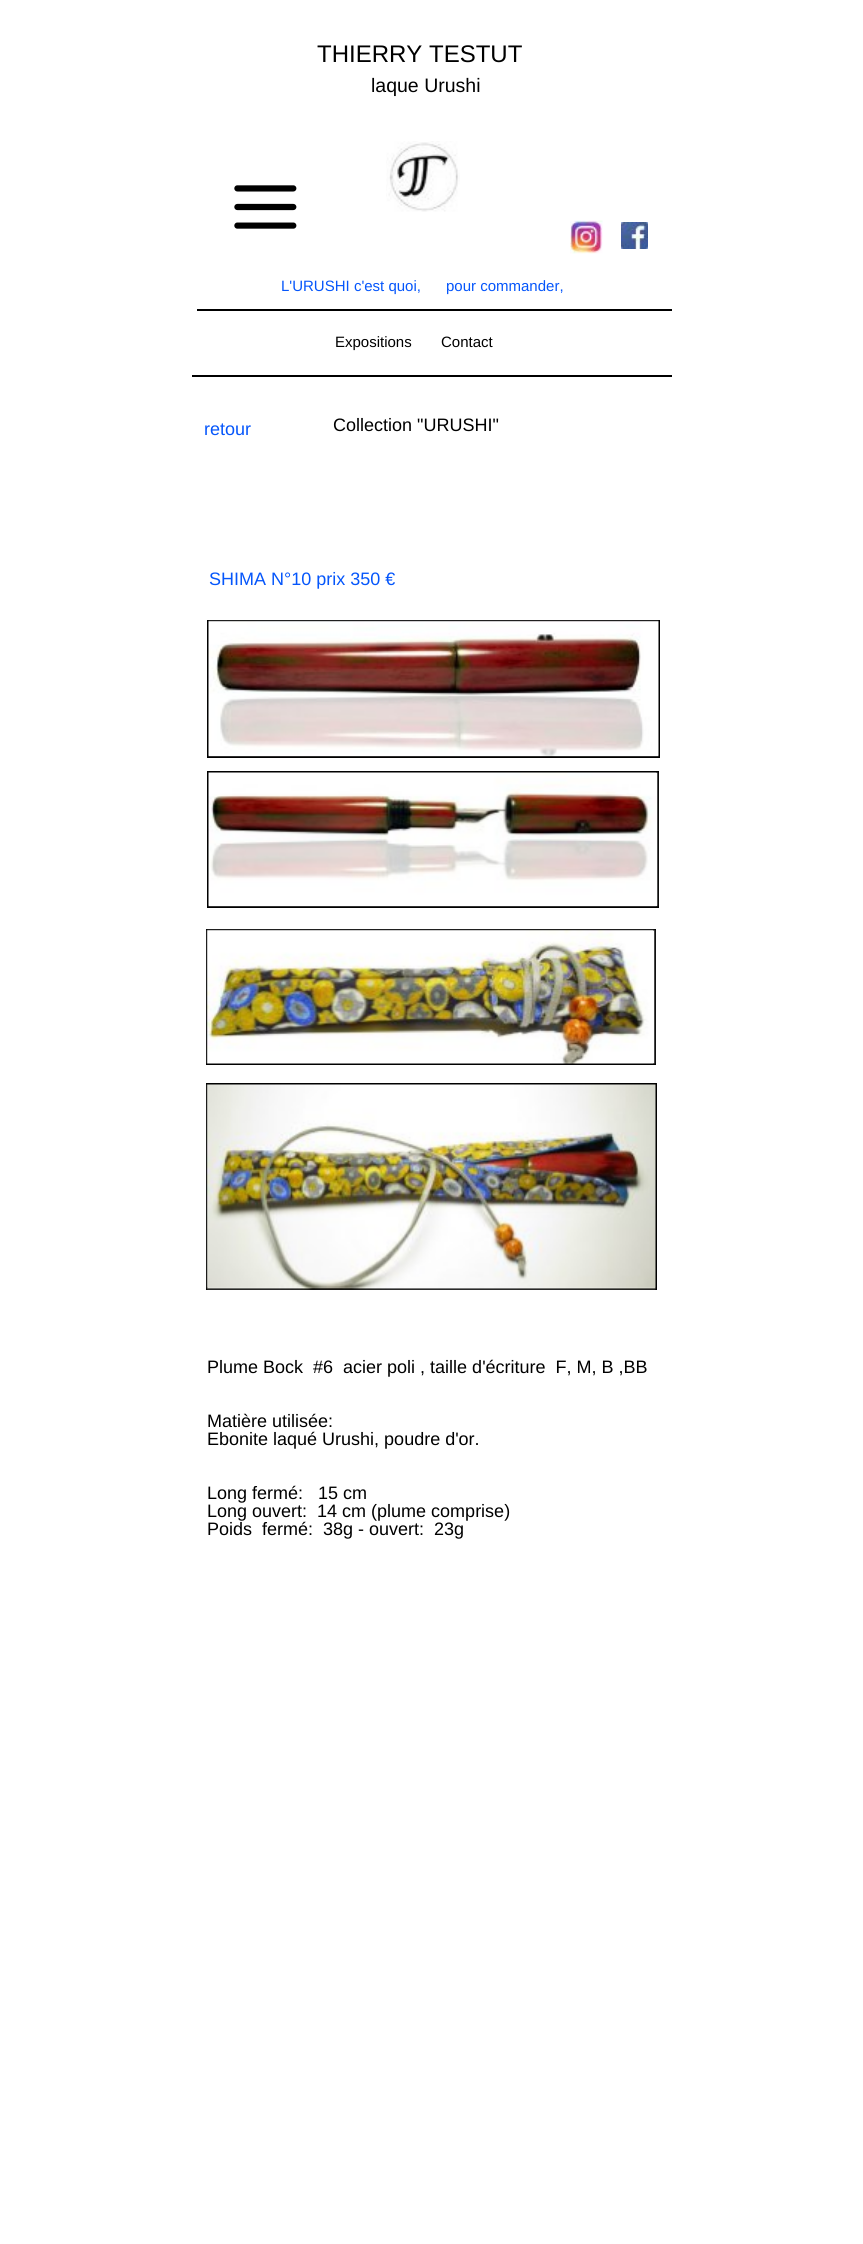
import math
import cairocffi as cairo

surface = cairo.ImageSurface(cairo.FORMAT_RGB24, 863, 2244)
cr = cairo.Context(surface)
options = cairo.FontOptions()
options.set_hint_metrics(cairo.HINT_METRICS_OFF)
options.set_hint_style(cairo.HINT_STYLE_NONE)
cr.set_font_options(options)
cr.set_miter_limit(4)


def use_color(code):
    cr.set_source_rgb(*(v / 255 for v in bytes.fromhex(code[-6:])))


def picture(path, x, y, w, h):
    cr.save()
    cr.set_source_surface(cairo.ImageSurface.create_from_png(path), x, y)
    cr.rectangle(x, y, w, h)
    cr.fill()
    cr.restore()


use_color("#ffffff")
cr.paint()
cr.select_font_face("Liberation Sans")
cr.set_font_size(24)
use_color("#000000")
cr.move_to(317, 62)
cr.show_text("THIERRY TESTUT")
cr.set_font_size(19.5)
cr.move_to(371, 92)
cr.show_text("laque Urushi")
picture("img1.png", 234, 185, 63, 44)
picture("img2.png", 386, 141, 74, 71)
picture("img3.png", 570, 220, 33, 34)
picture("img4.png", 621, 222, 27, 27)
cr.set_font_size(15)
use_color("#0556fb")
cr.move_to(281, 291)
cr.show_text("L'URUSHI c'est quoi,")
cr.move_to(446, 291)
cr.show_text("pour commander,")
use_color("#000000")
cr.rectangle(197, 309, 475, 2)
cr.fill()
cr.move_to(335, 347)
cr.show_text("Expositions")
cr.move_to(441, 347)
cr.show_text("Contact")
cr.rectangle(192, 375, 480, 2)
cr.fill()
cr.set_font_size(18)
use_color("#0556fb")
cr.move_to(204, 435)
cr.show_text("retour")
use_color("#000000")
cr.move_to(333, 431)
cr.show_text("Collection \"URUSHI\"")
use_color("#0556fb")
cr.move_to(209, 585)
cr.show_text("SHIMA N°10 prix 350 €")
cr.rectangle(208, 621, 451, 136)
use_color("#000000")
cr.stroke()
picture("img5.png", 208, 620, 451, 137)
cr.rectangle(208, 772, 450, 135)
cr.stroke()
picture("img6.png", 208, 772, 451, 135)
cr.rectangle(207, 930, 448, 134)
cr.stroke()
picture("img7.png", 206, 929, 450, 135)
cr.rectangle(207, 1084, 449, 205)
cr.stroke()
picture("img8.png", 206, 1084, 450, 206)
cr.move_to(207, 1373)
cr.show_text("Plume Bock  #6  acier poli , taille d'écriture  F, M, B ,BB")
cr.move_to(207, 1427)
cr.show_text("Matière utilisée:")
cr.move_to(207, 1445)
cr.show_text("Ebonite laqué Urushi, poudre d'or.")
cr.move_to(207, 1499)
cr.show_text("Long fermé:   15 cm")
cr.move_to(207, 1517)
cr.show_text("Long ouvert:  14 cm (plume comprise)")
cr.move_to(207, 1535)
cr.show_text("Poids  fermé:  38g - ouvert:  23g")
surface.write_to_png("result.png")
